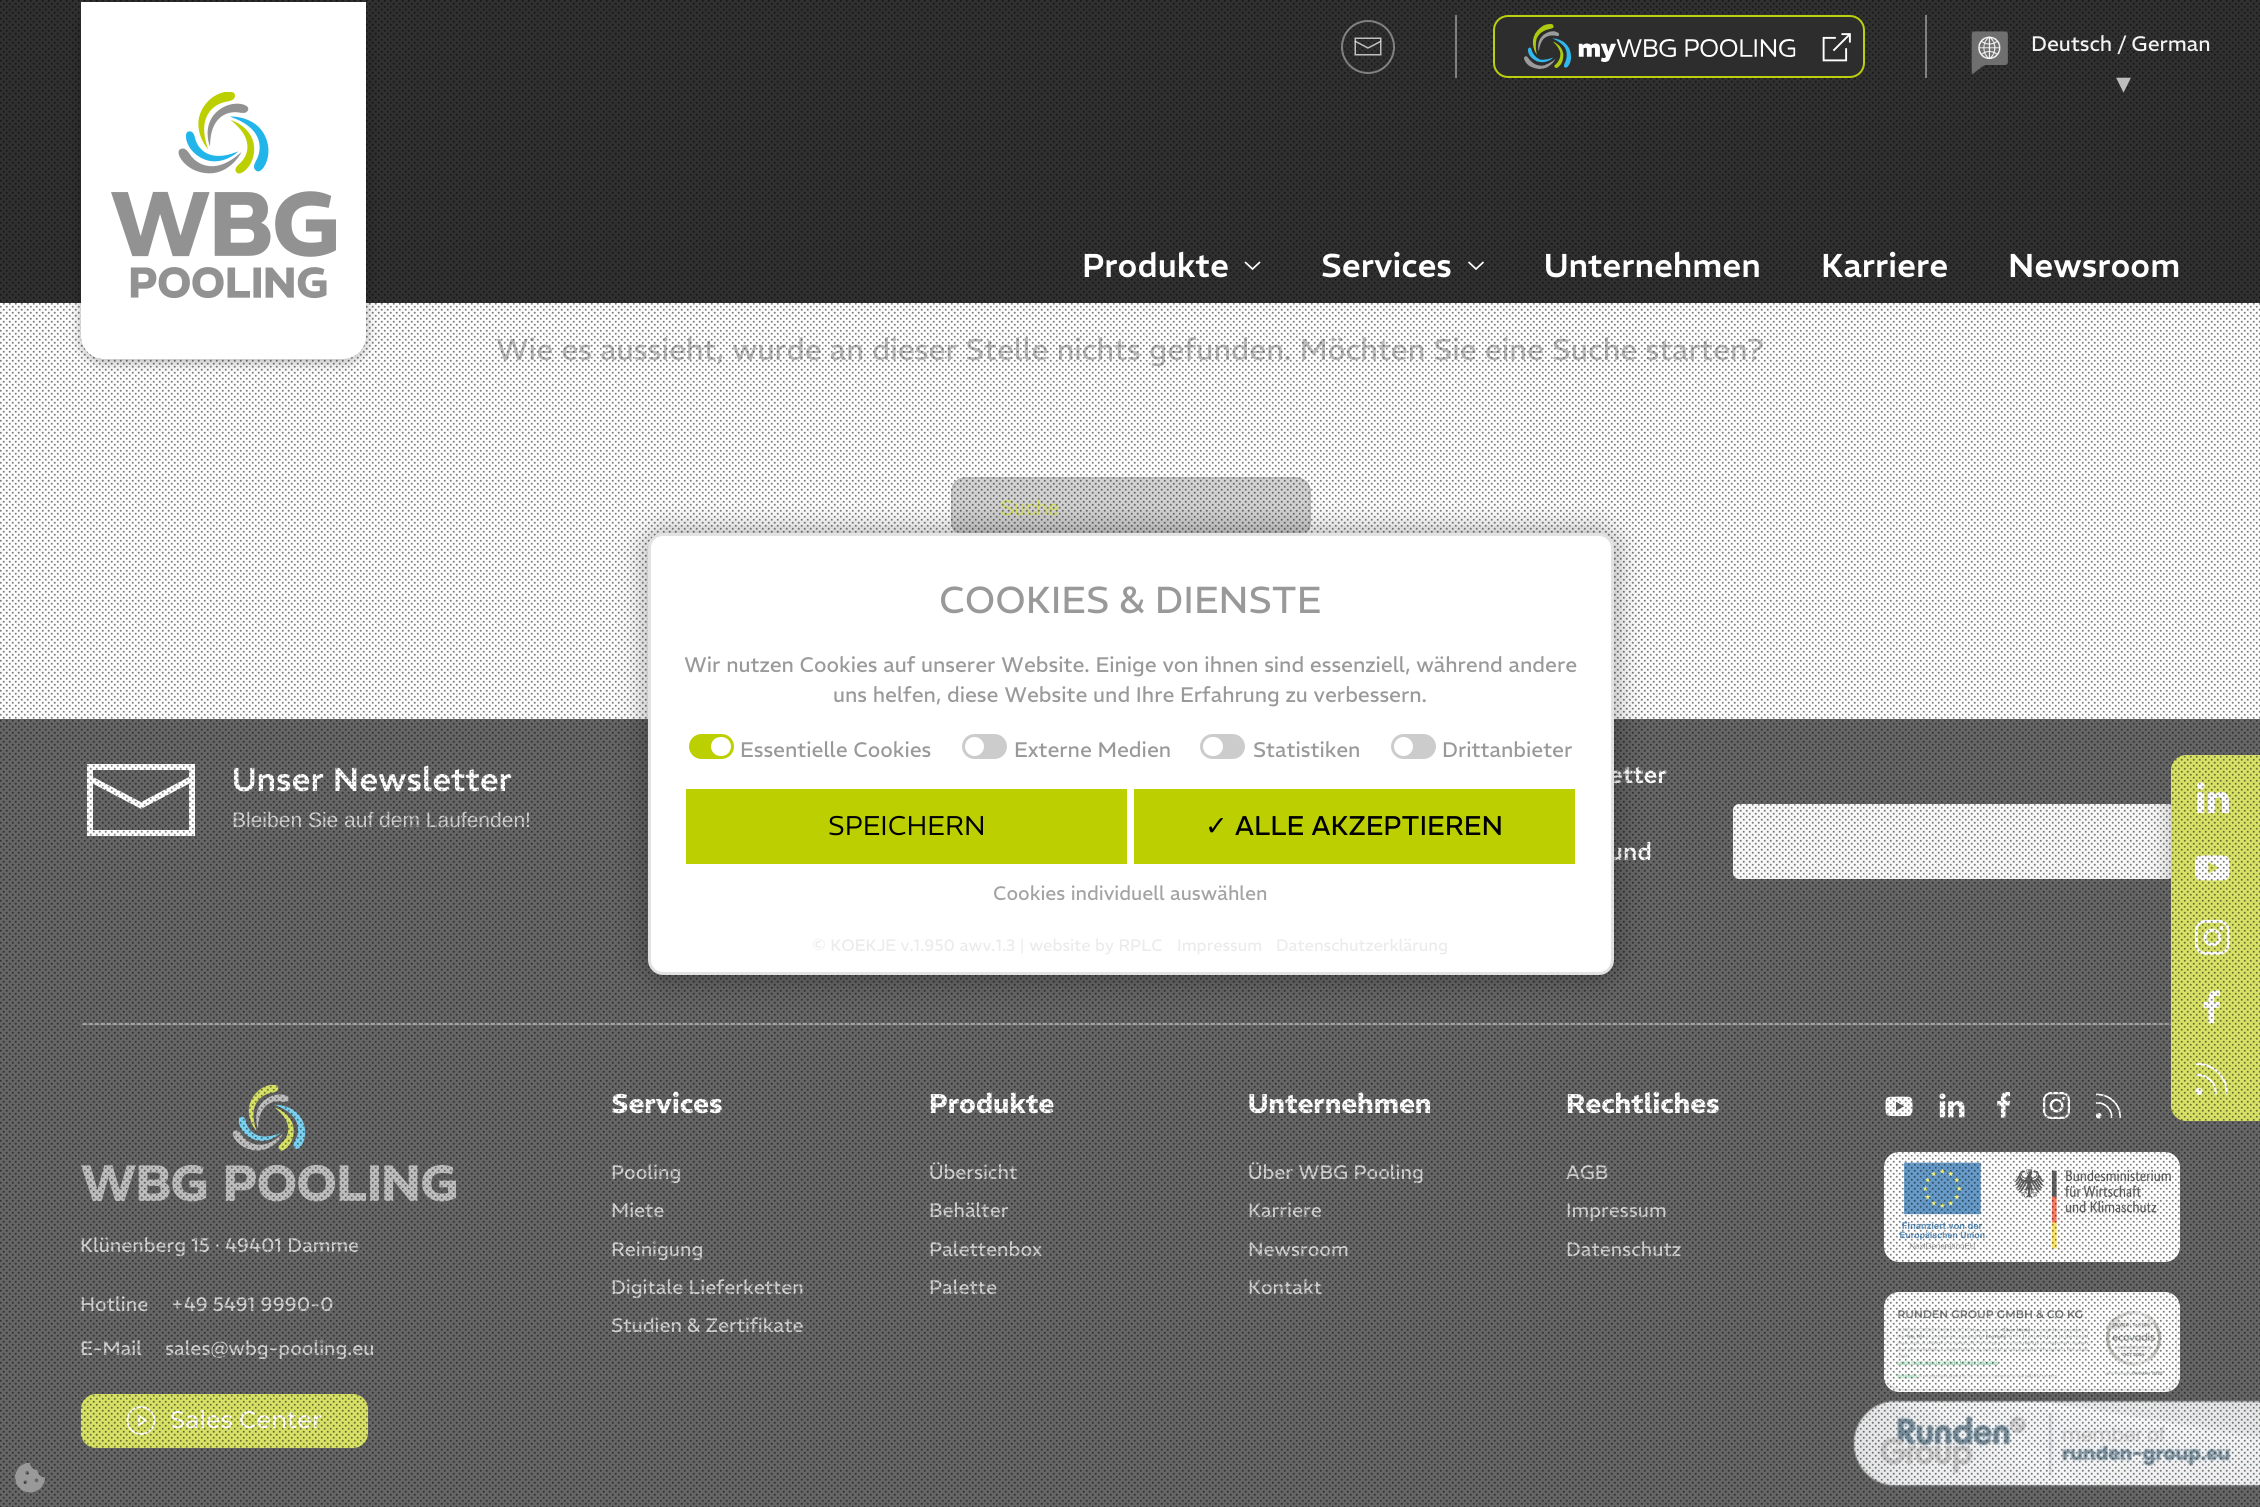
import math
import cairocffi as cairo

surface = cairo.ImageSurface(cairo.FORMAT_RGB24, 2260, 1507)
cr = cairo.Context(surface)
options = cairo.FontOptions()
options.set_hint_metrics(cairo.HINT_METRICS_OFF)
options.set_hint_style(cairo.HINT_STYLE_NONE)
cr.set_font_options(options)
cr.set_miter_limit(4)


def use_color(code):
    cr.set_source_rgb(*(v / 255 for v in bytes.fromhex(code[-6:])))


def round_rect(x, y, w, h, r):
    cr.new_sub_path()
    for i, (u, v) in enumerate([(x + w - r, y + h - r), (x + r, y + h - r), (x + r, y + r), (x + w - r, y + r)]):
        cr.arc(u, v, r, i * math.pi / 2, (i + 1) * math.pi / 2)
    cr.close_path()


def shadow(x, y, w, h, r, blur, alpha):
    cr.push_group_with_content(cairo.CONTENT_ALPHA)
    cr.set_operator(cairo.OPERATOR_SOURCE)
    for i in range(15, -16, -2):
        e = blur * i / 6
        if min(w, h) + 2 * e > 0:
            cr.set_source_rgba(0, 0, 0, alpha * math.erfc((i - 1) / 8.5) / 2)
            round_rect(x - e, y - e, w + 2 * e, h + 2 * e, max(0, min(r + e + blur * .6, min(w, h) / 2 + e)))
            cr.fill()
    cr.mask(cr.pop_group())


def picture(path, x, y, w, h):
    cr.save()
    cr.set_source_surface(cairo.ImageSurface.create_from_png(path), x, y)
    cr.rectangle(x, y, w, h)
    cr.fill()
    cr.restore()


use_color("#ffffff")
cr.paint()
cr.select_font_face("REM Medium")
cr.set_font_size(30)
use_color("#bebebe")
cr.move_to(496, 360)
cr.show_text("Wie es aussieht, wurde an dieser Stelle nichts gefunden. Möchten Sie eine Suche starten?")
use_color("#d3d3d3")
round_rect(951, 477, 360, 60, 15)
cr.fill()
cr.new_path()
cr.move_to(1306, 532)
cr.curve_to(1303.5, 534.5, 1300, 536, 1296, 536)
cr.line_to(966, 536)
cr.curve_to(962, 536, 958.5, 534.5, 956, 532)
use_color("#f9f9f9")
cr.set_line_width(1.5)
cr.stroke()
cr.new_path()
cr.move_to(956, 532)
cr.curve_to(953.5, 529.5, 952, 526, 952, 522)
cr.line_to(952, 492)
cr.curve_to(952, 488, 953.5, 484.5, 956, 482)
cr.curve_to(958.5, 479.5, 962, 478, 966, 478)
cr.line_to(1296, 478)
cr.curve_to(1300, 478, 1303.5, 479.5, 1306, 482)
cr.curve_to(1308.5, 484.5, 1310, 488, 1310, 492)
cr.line_to(1310, 522)
cr.curve_to(1310, 526, 1308.5, 529.5, 1306, 532)
use_color("#c2c2c2")
cr.stroke()
cr.select_font_face("Liberation Sans")
cr.set_font_size(21)
use_color("#d7e266")
cr.move_to(1000, 515)
cr.show_text("Suche")
use_color("#666666")
cr.rectangle(0, 719, 2260, 788)
cr.fill()
cr.new_path()
cr.move_to(89.5, 778.5)
cr.line_to(141, 805.5)
cr.line_to(192.5, 778.5)
use_color("#ffffff")
cr.set_line_width(6)
cr.stroke()
cr.new_path()
cr.move_to(87, 764)
cr.line_to(87, 836)
cr.line_to(195, 836)
cr.line_to(195, 764)
cr.close_path()
cr.move_to(189, 830)
cr.line_to(93, 830)
cr.line_to(93, 770)
cr.line_to(189, 770)
cr.close_path()
cr.fill()
cr.select_font_face("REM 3 Medium")
cr.set_font_size(33)
cr.move_to(232, 791)
cr.show_text("Unser Newsletter")
cr.select_font_face("Liberation Sans")
cr.set_font_size(21)
use_color("#d1d1d1")
cr.move_to(232, 827)
cr.show_text("Bleiben Sie auf dem Laufenden!")
cr.select_font_face("REM 3 Medium")
cr.set_font_size(24)
use_color("#ffffff")
cr.move_to(1609, 783)
cr.show_text("etter")
cr.move_to(1609, 860)
cr.show_text("und")
use_color("#f9f9f9")
round_rect(1733, 804, 441, 75, 6)
cr.fill()
use_color("#a3a3a3")
cr.rectangle(81, 1023, 2090, 2)
cr.fill()
use_color("#ffffff")
round_rect(1884, 1152, 296, 110, 15)
cr.fill()
picture("img16.png", 1900, 1162, 271, 87)
use_color("#666666")
shadow(2171, 770, 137, 366, 15, 11, 0.4)
use_color("#d7e266")
round_rect(2171, 755, 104, 366, 15)
cr.fill()
picture("img7.png", 2196, 782, 33, 32)
picture("img8.png", 2194, 855, 36, 26)
picture("img9.png", 2194, 919, 36, 36)
picture("img10.png", 2203, 990, 18, 34)
use_color("#ffffff")
cr.arc(2199, 1091.5, 3.5, 0, 2 * math.pi)
cr.fill()
cr.new_path()
cr.move_to(2196, 1075)
cr.curve_to(2207, 1074, 2217, 1083.5, 2215.5, 1094.5)
cr.move_to(2196, 1064)
cr.curve_to(2213, 1063, 2228, 1077, 2226.5, 1094.5)
cr.set_line_width(2.1)
cr.stroke()
picture("img11.png", 81, 1085, 375, 117)
cr.select_font_face("REM Medium")
cr.set_font_size(19.5)
use_color("#d1d1d1")
cr.move_to(80, 1252)
cr.show_text("Klünenberg 15")
cr.select_font_face("Liberation Serif")
cr.move_to(215, 1252)
cr.show_text("∙")
cr.select_font_face("REM Medium")
cr.move_to(225, 1252)
cr.show_text("49401 Damme")
cr.move_to(80, 1311)
cr.show_text("Hotline")
cr.move_to(171, 1311)
cr.show_text("+49 5491 9990-0")
cr.move_to(80, 1355)
cr.show_text("E-Mail")
cr.move_to(165, 1355)
cr.show_text("sales@wbg-pooling.eu")
use_color("#d7e266")
round_rect(81, 1394, 287, 54, 15)
cr.fill()
cr.new_path()
cr.move_to(139, 1416)
cr.line_to(146, 1420.5)
cr.line_to(139, 1425)
cr.close_path()
use_color("#ffffff")
cr.set_line_width(1.7)
cr.stroke()
cr.arc(141, 1420.5, 13.5, 0, 2 * math.pi)
cr.stroke()
cr.select_font_face("Montserrat Thin")
cr.set_font_size(24)
cr.move_to(170, 1428)
cr.show_text("Sales Center")
cr.select_font_face("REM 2 Medium")
cr.set_font_size(27)
cr.move_to(611, 1113)
cr.show_text("Services")
cr.select_font_face("REM Medium")
cr.set_font_size(19.5)
use_color("#d1d1d1")
cr.move_to(611, 1179)
cr.show_text("Pooling")
cr.move_to(611, 1217)
cr.show_text("Miete")
cr.move_to(611, 1256)
cr.show_text("Reinigung")
cr.move_to(611, 1294)
cr.show_text("Digitale Lieferketten")
cr.move_to(611, 1332)
cr.show_text("Studien & Zertifikate")
cr.select_font_face("REM 2 Medium")
cr.set_font_size(27)
use_color("#ffffff")
cr.move_to(929, 1113)
cr.show_text("Produkte")
cr.select_font_face("REM Medium")
cr.set_font_size(19.5)
use_color("#d1d1d1")
cr.move_to(929, 1179)
cr.show_text("Übersicht")
cr.move_to(929, 1217)
cr.show_text("Behälter")
cr.move_to(929, 1256)
cr.show_text("Palettenbox")
cr.move_to(929, 1294)
cr.show_text("Palette")
cr.select_font_face("REM 2 Medium")
cr.set_font_size(27)
use_color("#ffffff")
cr.move_to(1248, 1113)
cr.show_text("Unternehmen")
cr.select_font_face("REM Medium")
cr.set_font_size(19.5)
use_color("#d1d1d1")
cr.move_to(1248, 1179)
cr.show_text("Über WBG Pooling")
cr.move_to(1248, 1217)
cr.show_text("Karriere")
cr.move_to(1248, 1256)
cr.show_text("Newsroom")
cr.move_to(1248, 1294)
cr.show_text("Kontakt")
cr.select_font_face("REM 2 Medium")
cr.set_font_size(27)
use_color("#ffffff")
cr.move_to(1566, 1113)
cr.show_text("Rechtliches")
cr.select_font_face("REM Medium")
cr.set_font_size(19.5)
use_color("#d1d1d1")
cr.move_to(1566, 1179)
cr.show_text("AGB")
cr.move_to(1566, 1217)
cr.show_text("Impressum")
cr.move_to(1566, 1256)
cr.show_text("Datenschutz")
picture("img12.png", 1885, 1096, 28, 21)
picture("img13.png", 1939, 1093, 26, 25)
picture("img14.png", 1997, 1092, 13, 26)
picture("img15.png", 2043, 1092, 27, 27)
use_color("#ffffff")
cr.arc(2098.7, 1115.7, 2.8, 0, 2 * math.pi)
cr.fill()
cr.new_path()
cr.move_to(2096, 1103)
cr.curve_to(2105, 1102, 2112.5, 1109.5, 2111.5, 1118)
cr.move_to(2096, 1094.5)
cr.curve_to(2109.5, 1094, 2121, 1104.5, 2120, 1118)
cr.stroke()
round_rect(1884, 1292, 296, 100, 15)
cr.fill()
picture("img17.png", 1886, 1293, 291, 98)
picture("img18.png", 1853, 1400, 407, 87)
picture("img1.png", 0, 0, 2260, 1507)
cr.set_source_rgba(0, 0, 0, 0.81)
cr.rectangle(0, 0, 2260, 93)
cr.fill()
cr.arc(1368, 47, 26, 0, 2 * math.pi)
cr.set_source_rgba(1, 1, 1, 0.4)
cr.set_line_width(2)
cr.stroke()
picture("img2.png", 1354, 37, 28, 19)
cr.rectangle(1455, 15, 2, 63)
cr.fill()
use_color("#2d2d2d")
round_rect(1494, 16, 370, 61, 14)
cr.fill_preserve()
use_color("#bbcf0f")
cr.stroke()
picture("img3.png", 1524, 24, 272, 45)
picture("img4.png", 1822, 33, 29, 29)
cr.set_source_rgba(1, 1, 1, 0.4)
cr.rectangle(1925, 15, 2, 63)
cr.fill()
picture("img5.png", 1970, 31, 38, 44)
cr.set_font_size(21)
use_color("#f3f3f3")
cr.move_to(2031, 51)
cr.show_text("Deutsch / German")
cr.select_font_face("DejaVu Sans")
cr.set_font_size(30)
use_color("#bebebe")
cr.move_to(2116, 93)
cr.show_text("▾")
cr.set_source_rgba(0, 0, 0, 0.81)
cr.rectangle(0, 93, 2260, 210)
cr.fill()
use_color("#000000")
shadow(81, 5, 285, 357, 23, 6, 0.3)
use_color("#ffffff")
cr.new_path()
cr.move_to(81, 2)
cr.line_to(366, 2)
cr.line_to(366, 336)
cr.curve_to(366, 348.5, 355.5, 359, 343, 359)
cr.line_to(104, 359)
cr.curve_to(91.5, 359, 81, 348.5, 81, 336)
cr.close_path()
cr.fill()
picture("img6.png", 111, 92, 225, 207)
cr.select_font_face("REM 3 Medium")
cr.set_font_size(33)
cr.move_to(1082, 277)
cr.show_text("Produkte")
cr.new_path()
cr.move_to(1245, 262)
cr.line_to(1252.5, 269)
cr.line_to(1260, 262)
cr.set_line_width(1.7)
cr.stroke()
cr.move_to(1321, 277)
cr.show_text("Services")
cr.new_path()
cr.move_to(1468.5, 262)
cr.line_to(1476, 269)
cr.line_to(1483.5, 262)
cr.stroke()
cr.move_to(1544, 277)
cr.show_text("Unternehmen")
cr.move_to(1821, 277)
cr.show_text("Karriere")
cr.move_to(2008, 277)
cr.show_text("Newsroom")
use_color("#000000")
shadow(648, 533, 966, 442, 15, 15, 0.35)
use_color("#ffffff")
round_rect(649.5, 534.5, 963, 439, 13.5)
cr.fill_preserve()
use_color("#e2e2e2")
cr.set_line_width(3)
cr.stroke()
cr.select_font_face("REM Medium")
cr.set_font_size(37.5)
use_color("#999999")
cr.move_to(939, 613)
cr.show_text("COOKIES & DIENSTE")
cr.set_font_size(21)
cr.move_to(684, 672)
cr.show_text("Wir nutzen Cookies auf unserer Website. Einige von ihnen sind essenziell, während andere")
cr.move_to(833, 702)
cr.show_text("uns helfen, diese Website und Ihre Erfahrung zu verbessern.")
use_color("#bccf00")
round_rect(689, 734, 45, 25, 12.5)
cr.fill()
use_color("#ffffff")
round_rect(711, 737, 20, 19, 9.5)
cr.fill()
use_color("#999999")
cr.move_to(740, 757)
cr.show_text("Essentielle Cookies")
use_color("#cccccc")
round_rect(962, 734, 45, 25, 12.5)
cr.fill()
use_color("#ffffff")
cr.arc(974.5, 746.5, 9.5, 0, 2 * math.pi)
cr.fill()
use_color("#999999")
cr.move_to(1014, 757)
cr.show_text("Externe Medien")
use_color("#cccccc")
round_rect(1200, 734, 45, 25, 12.5)
cr.fill()
use_color("#ffffff")
round_rect(1203, 737, 20, 19, 9.5)
cr.fill()
use_color("#999999")
cr.move_to(1253, 757)
cr.show_text("Statistiken")
use_color("#cccccc")
round_rect(1391, 734, 45, 25, 12.5)
cr.fill()
use_color("#ffffff")
cr.arc(1403.5, 746.5, 9.5, 0, 2 * math.pi)
cr.fill()
use_color("#999999")
cr.move_to(1442, 757)
cr.show_text("Drittanbieter")
use_color("#bccf00")
cr.rectangle(686, 789, 441, 75)
cr.fill()
cr.select_font_face("REM Light")
cr.set_font_size(27)
use_color("#000000")
cr.move_to(828, 835)
cr.show_text("SPEICHERN")
use_color("#bccf00")
cr.rectangle(1134, 789, 441, 75)
cr.fill()
cr.select_font_face("DejaVu Sans")
use_color("#000000")
cr.move_to(1205, 835)
cr.show_text("✓")
cr.select_font_face("REM Medium")
cr.move_to(1235, 835)
cr.show_text("ALLE AKZEPTIEREN")
cr.set_font_size(19.5)
use_color("#a3a3a3")
cr.move_to(993, 900)
cr.show_text("Cookies individuell auswählen")
cr.set_font_size(16.5)
use_color("#ebebeb")
cr.move_to(812, 951)
cr.show_text("© KOEKJE v.1.950 awv.1.3 | website by RPLC")
cr.move_to(1177, 951)
cr.show_text("Impressum")
cr.move_to(1276, 951)
cr.show_text("Datenschutzerklärung")
picture("img19.png", 15, 1463, 30, 30)
surface.write_to_png("result.png")
